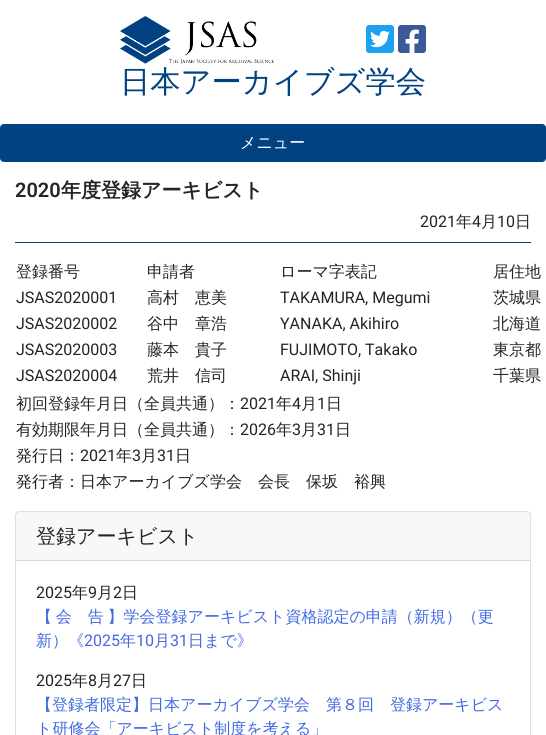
import math
import cairocffi as cairo

surface = cairo.ImageSurface(cairo.FORMAT_RGB24, 546, 735)
cr = cairo.Context(surface)
options = cairo.FontOptions()
options.set_hint_metrics(cairo.HINT_METRICS_OFF)
options.set_hint_style(cairo.HINT_STYLE_NONE)
cr.set_font_options(options)
cr.set_miter_limit(4)


def use_color(code):
    cr.set_source_rgb(*(v / 255 for v in bytes.fromhex(code[-6:])))


def spaced_text(x, y, s, letter, word):
    cr.move_to(x, y)
    for ch in s:
        cr.show_text(ch)
        cr.rel_move_to(letter + word * (ch == ' '), 0)


def round_rect(x, y, w, h, r):
    cr.new_sub_path()
    for i, (u, v) in enumerate([(x + w - r, y + h - r), (x + r, y + h - r), (x + r, y + r), (x + w - r, y + r)]):
        cr.arc(u, v, r, i * math.pi / 2, (i + 1) * math.pi / 2)
    cr.close_path()


def picture(path, x, y, w, h):
    cr.save()
    cr.set_source_surface(cairo.ImageSurface.create_from_png(path), x, y)
    cr.rectangle(x, y, w, h)
    cr.fill()
    cr.restore()


use_color("#ffffff")
cr.paint()
picture("img1.png", 120, 16, 154, 48)
picture("img2.png", 366, 25, 28, 28)
picture("img3.png", 398, 25, 28, 28)
cr.select_font_face("WenQuanYi Zen Hei Medium")
cr.set_font_size(30.25)
use_color("#024282")
cr.move_to(120, 92)
cr.show_text("日本アーカイブズ学会")
round_rect(0.5, 124.5, 545, 37, 3.5)
cr.fill_preserve()
cr.set_line_width(1)
cr.stroke()
cr.set_font_size(16)
use_color("#ffffff")
cr.move_to(240, 148)
cr.show_text("メニュー")
use_color("#024282")
cr.rectangle(15, 242, 516, 1)
cr.fill()
cr.select_font_face("Roboto SemiBold")
cr.set_font_size(20)
use_color("#212529")
cr.move_to(15, 197)
cr.show_text("2020")
cr.select_font_face("WenQuanYi Zen Hei", cairo.FONT_SLANT_NORMAL, cairo.FONT_WEIGHT_BOLD)
cr.move_to(61, 197)
cr.show_text("年度登録アーキビスト")
cr.select_font_face("Roboto")
cr.set_font_size(16)
cr.move_to(420, 227)
cr.show_text("2021")
cr.select_font_face("WenQuanYi Zen Hei Medium")
cr.move_to(456, 227)
cr.show_text("年")
cr.select_font_face("Roboto")
cr.move_to(472, 227)
cr.show_text("4")
cr.select_font_face("WenQuanYi Zen Hei Medium")
cr.move_to(481, 227)
cr.show_text("月")
cr.select_font_face("Roboto")
cr.move_to(497, 227)
cr.show_text("10")
cr.select_font_face("WenQuanYi Zen Hei Medium")
cr.move_to(515, 227)
cr.show_text("日")
cr.move_to(16, 277)
cr.show_text("登録番号")
cr.move_to(147, 277)
cr.show_text("申請者")
cr.move_to(280, 277)
cr.show_text("ローマ字表記")
cr.move_to(493, 277)
cr.show_text("居住地")
cr.select_font_face("Roboto")
cr.move_to(16, 303)
cr.show_text("JSAS2020001")
cr.select_font_face("WenQuanYi Zen Hei Medium")
cr.move_to(147, 303)
cr.show_text("高村　恵美")
cr.select_font_face("Roboto")
cr.move_to(280, 303)
cr.show_text("TAKAMURA, Megumi")
cr.select_font_face("WenQuanYi Zen Hei Medium")
cr.move_to(493, 303)
cr.show_text("茨城県")
cr.select_font_face("Roboto")
cr.move_to(16, 329)
cr.show_text("JSAS2020002")
cr.select_font_face("WenQuanYi Zen Hei Medium")
cr.move_to(147, 329)
cr.show_text("谷中　章浩")
cr.select_font_face("Roboto")
cr.move_to(280, 329)
cr.show_text("YANAKA, Akihiro")
cr.select_font_face("WenQuanYi Zen Hei Medium")
cr.move_to(493, 329)
cr.show_text("北海道")
cr.select_font_face("Roboto")
cr.move_to(16, 355)
cr.show_text("JSAS2020003")
cr.select_font_face("WenQuanYi Zen Hei Medium")
cr.move_to(147, 355)
cr.show_text("藤本　貴子")
cr.select_font_face("Roboto")
cr.move_to(280, 355)
cr.show_text("FUJIMOTO, Takako")
cr.select_font_face("WenQuanYi Zen Hei Medium")
cr.move_to(493, 355)
cr.show_text("東京都")
cr.select_font_face("Roboto")
cr.move_to(16, 381)
cr.show_text("JSAS2020004")
cr.select_font_face("WenQuanYi Zen Hei Medium")
cr.move_to(147, 381)
cr.show_text("荒井　信司")
cr.select_font_face("Roboto")
cr.move_to(280, 381)
cr.show_text("ARAI, Shinji")
cr.select_font_face("WenQuanYi Zen Hei Medium")
cr.move_to(493, 381)
cr.show_text("千葉県")
cr.move_to(16, 409)
cr.show_text("初回登録年月日（全員共通）：")
cr.select_font_face("Roboto")
cr.move_to(240, 409)
cr.show_text("2021")
cr.select_font_face("WenQuanYi Zen Hei Medium")
cr.move_to(276, 409)
cr.show_text("年")
cr.select_font_face("Roboto")
cr.move_to(292, 409)
cr.show_text("4")
cr.select_font_face("WenQuanYi Zen Hei Medium")
cr.move_to(301, 409)
cr.show_text("月")
cr.select_font_face("Roboto")
cr.move_to(317, 409)
cr.show_text("1")
cr.select_font_face("WenQuanYi Zen Hei Medium")
cr.move_to(326, 409)
cr.show_text("日")
cr.move_to(16, 435)
cr.show_text("有効期限年月日（全員共通）：")
cr.select_font_face("Roboto")
cr.move_to(240, 435)
cr.show_text("2026")
cr.select_font_face("WenQuanYi Zen Hei Medium")
cr.move_to(276, 435)
cr.show_text("年")
cr.select_font_face("Roboto")
cr.move_to(292, 435)
cr.show_text("3")
cr.select_font_face("WenQuanYi Zen Hei Medium")
cr.move_to(301, 435)
cr.show_text("月")
cr.select_font_face("Roboto")
cr.move_to(317, 435)
cr.show_text("31")
cr.select_font_face("WenQuanYi Zen Hei Medium")
cr.move_to(335, 435)
cr.show_text("日")
cr.move_to(16, 461)
cr.show_text("発行日：")
cr.select_font_face("Roboto")
cr.move_to(80, 461)
cr.show_text("2021")
cr.select_font_face("WenQuanYi Zen Hei Medium")
cr.move_to(116, 461)
cr.show_text("年")
cr.select_font_face("Roboto")
cr.move_to(132, 461)
cr.show_text("3")
cr.select_font_face("WenQuanYi Zen Hei Medium")
cr.move_to(141, 461)
cr.show_text("月")
cr.select_font_face("Roboto")
cr.move_to(157, 461)
cr.show_text("31")
cr.select_font_face("WenQuanYi Zen Hei Medium")
cr.move_to(175, 461)
cr.show_text("日")
cr.move_to(16, 487)
cr.show_text("発行者：日本アーカイブズ学会　会長　保坂　裕興")
round_rect(15.5, 511.5, 515, 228, 3.5)
use_color("#dfdfdf")
cr.stroke()
cr.set_source_rgba(0, 0, 0, 0.03)
cr.rectangle(16, 512, 514, 48)
cr.fill()
use_color("#d8d8d8")
cr.rectangle(16, 560, 514, 1)
cr.fill()
cr.set_font_size(20)
use_color("#212529")
cr.move_to(36, 543)
cr.show_text("登録アーキビスト")
cr.select_font_face("Roboto")
cr.set_font_size(16)
cr.move_to(36, 598)
cr.show_text("2025")
cr.select_font_face("WenQuanYi Zen Hei Medium")
cr.move_to(72, 598)
cr.show_text("年")
cr.select_font_face("Roboto")
cr.move_to(88, 598)
cr.show_text("9")
cr.select_font_face("WenQuanYi Zen Hei Medium")
cr.move_to(97, 598)
cr.show_text("月")
cr.select_font_face("Roboto")
cr.move_to(113, 598)
cr.show_text("2")
cr.select_font_face("WenQuanYi Zen Hei Medium")
cr.move_to(122, 598)
cr.show_text("日")
use_color("#4169e1")
spaced_text(36, 622, "【 会　告 】学会登録アーキビスト資格認定の申請（新規）（更", 0, -1)
cr.move_to(36, 646)
cr.show_text("新）《")
cr.select_font_face("Roboto")
cr.move_to(84, 646)
cr.show_text("2025")
cr.select_font_face("WenQuanYi Zen Hei Medium")
cr.move_to(120, 646)
cr.show_text("年")
cr.select_font_face("Roboto")
cr.move_to(136, 646)
cr.show_text("10")
cr.select_font_face("WenQuanYi Zen Hei Medium")
cr.move_to(154, 646)
cr.show_text("月")
cr.select_font_face("Roboto")
cr.move_to(170, 646)
cr.show_text("31")
cr.select_font_face("WenQuanYi Zen Hei Medium")
cr.move_to(188, 646)
cr.show_text("日まで》")
cr.select_font_face("Roboto")
use_color("#212529")
cr.move_to(36, 686)
cr.show_text("2025")
cr.select_font_face("WenQuanYi Zen Hei Medium")
cr.move_to(72, 686)
cr.show_text("年")
cr.select_font_face("Roboto")
cr.move_to(88, 686)
cr.show_text("8")
cr.select_font_face("WenQuanYi Zen Hei Medium")
cr.move_to(97, 686)
cr.show_text("月")
cr.select_font_face("Roboto")
cr.move_to(113, 686)
cr.show_text("27")
cr.select_font_face("WenQuanYi Zen Hei Medium")
cr.move_to(131, 686)
cr.show_text("日")
use_color("#4169e1")
cr.move_to(36, 710)
cr.show_text("【登録者限定】日本アーカイブズ学会　第８回　登録アーキビス")
cr.move_to(36, 734)
cr.show_text("ト研修会「アーキビスト制度を考える」")
surface.write_to_png("result.png")
